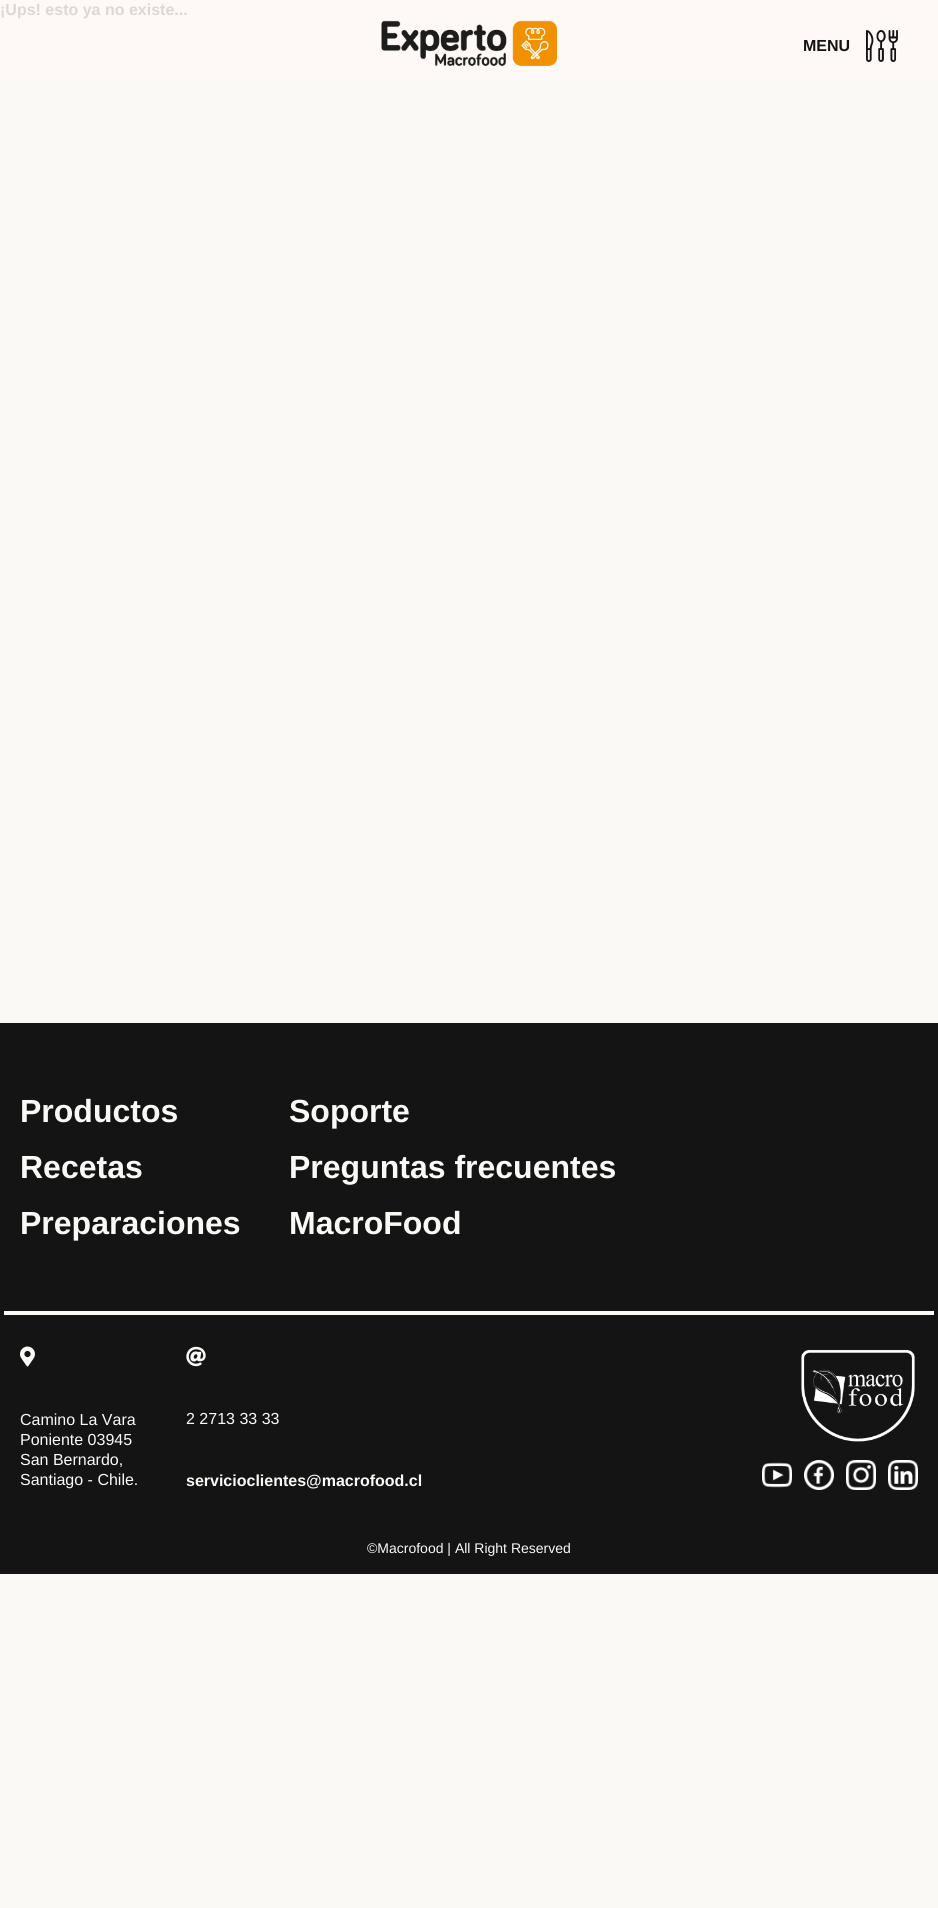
import math
import cairocffi as cairo

surface = cairo.ImageSurface(cairo.FORMAT_RGB24, 938, 1908)
cr = cairo.Context(surface)
options = cairo.FontOptions()
options.set_hint_metrics(cairo.HINT_METRICS_OFF)
options.set_hint_style(cairo.HINT_STYLE_NONE)
cr.set_font_options(options)
cr.set_miter_limit(4)


def use_color(code):
    cr.set_source_rgb(*(v / 255 for v in bytes.fromhex(code[-6:])))


def picture(path, x, y, w, h):
    cr.save()
    cr.set_source_surface(cairo.ImageSurface.create_from_png(path), x, y)
    cr.rectangle(x, y, w, h)
    cr.fill()
    cr.restore()


use_color("#faf9f6")
cr.paint()
use_color("#fef9f6")
cr.rectangle(0, 0, 938, 79)
cr.fill()
cr.select_font_face("Liberation Sans", cairo.FONT_SLANT_NORMAL, cairo.FONT_WEIGHT_BOLD)
cr.set_font_size(16)
use_color("#dcd7d4")
cr.move_to(0, 15)
cr.show_text("¡Ups! esto ya no existe...")
picture("img1.png", 381, 20, 176, 46)
use_color("#141414")
cr.move_to(803, 51)
cr.show_text("MENU")
picture("img2.png", 866, 30, 32, 32)
cr.rectangle(0, 1023, 938, 551)
cr.fill()
use_color("#faf9f6")
cr.rectangle(4, 1311, 930, 4)
cr.fill()
cr.set_font_size(32)
cr.move_to(20, 1122)
cr.show_text("Productos")
cr.move_to(20, 1178)
cr.show_text("Recetas")
cr.move_to(20, 1234)
cr.show_text("Preparaciones")
cr.move_to(289, 1122)
cr.show_text("Soporte")
cr.move_to(289, 1178)
cr.show_text("Preguntas frecuentes")
cr.move_to(289, 1234)
cr.show_text("MacroFood")
picture("img3.png", 20, 1346, 15, 21)
cr.select_font_face("Liberation Sans")
cr.set_font_size(16)
cr.move_to(20, 1425)
cr.show_text("Camino La Vara")
cr.move_to(20, 1445)
cr.show_text("Poniente 03945")
cr.move_to(20, 1465)
cr.show_text("San Bernardo,")
cr.move_to(20, 1485)
cr.show_text("Santiago - Chile.")
picture("img4.png", 186, 1346, 20, 21)
cr.move_to(186, 1424)
cr.show_text("2 2713 33 33")
cr.select_font_face("Liberation Sans", cairo.FONT_SLANT_NORMAL, cairo.FONT_WEIGHT_BOLD)
cr.move_to(186, 1486)
cr.show_text("servicioclientes@macrofood.cl")
picture("img5.png", 801, 1349, 114, 93)
picture("img6.png", 762, 1462, 30, 26)
picture("img7.png", 804, 1460, 30, 30)
picture("img8.png", 846, 1460, 30, 30)
picture("img9.png", 888, 1460, 30, 30)
cr.select_font_face("Liberation Sans")
cr.set_font_size(14)
cr.move_to(367, 1553)
cr.show_text("©Macrofood | All Right Reserved")
surface.write_to_png("result.png")
